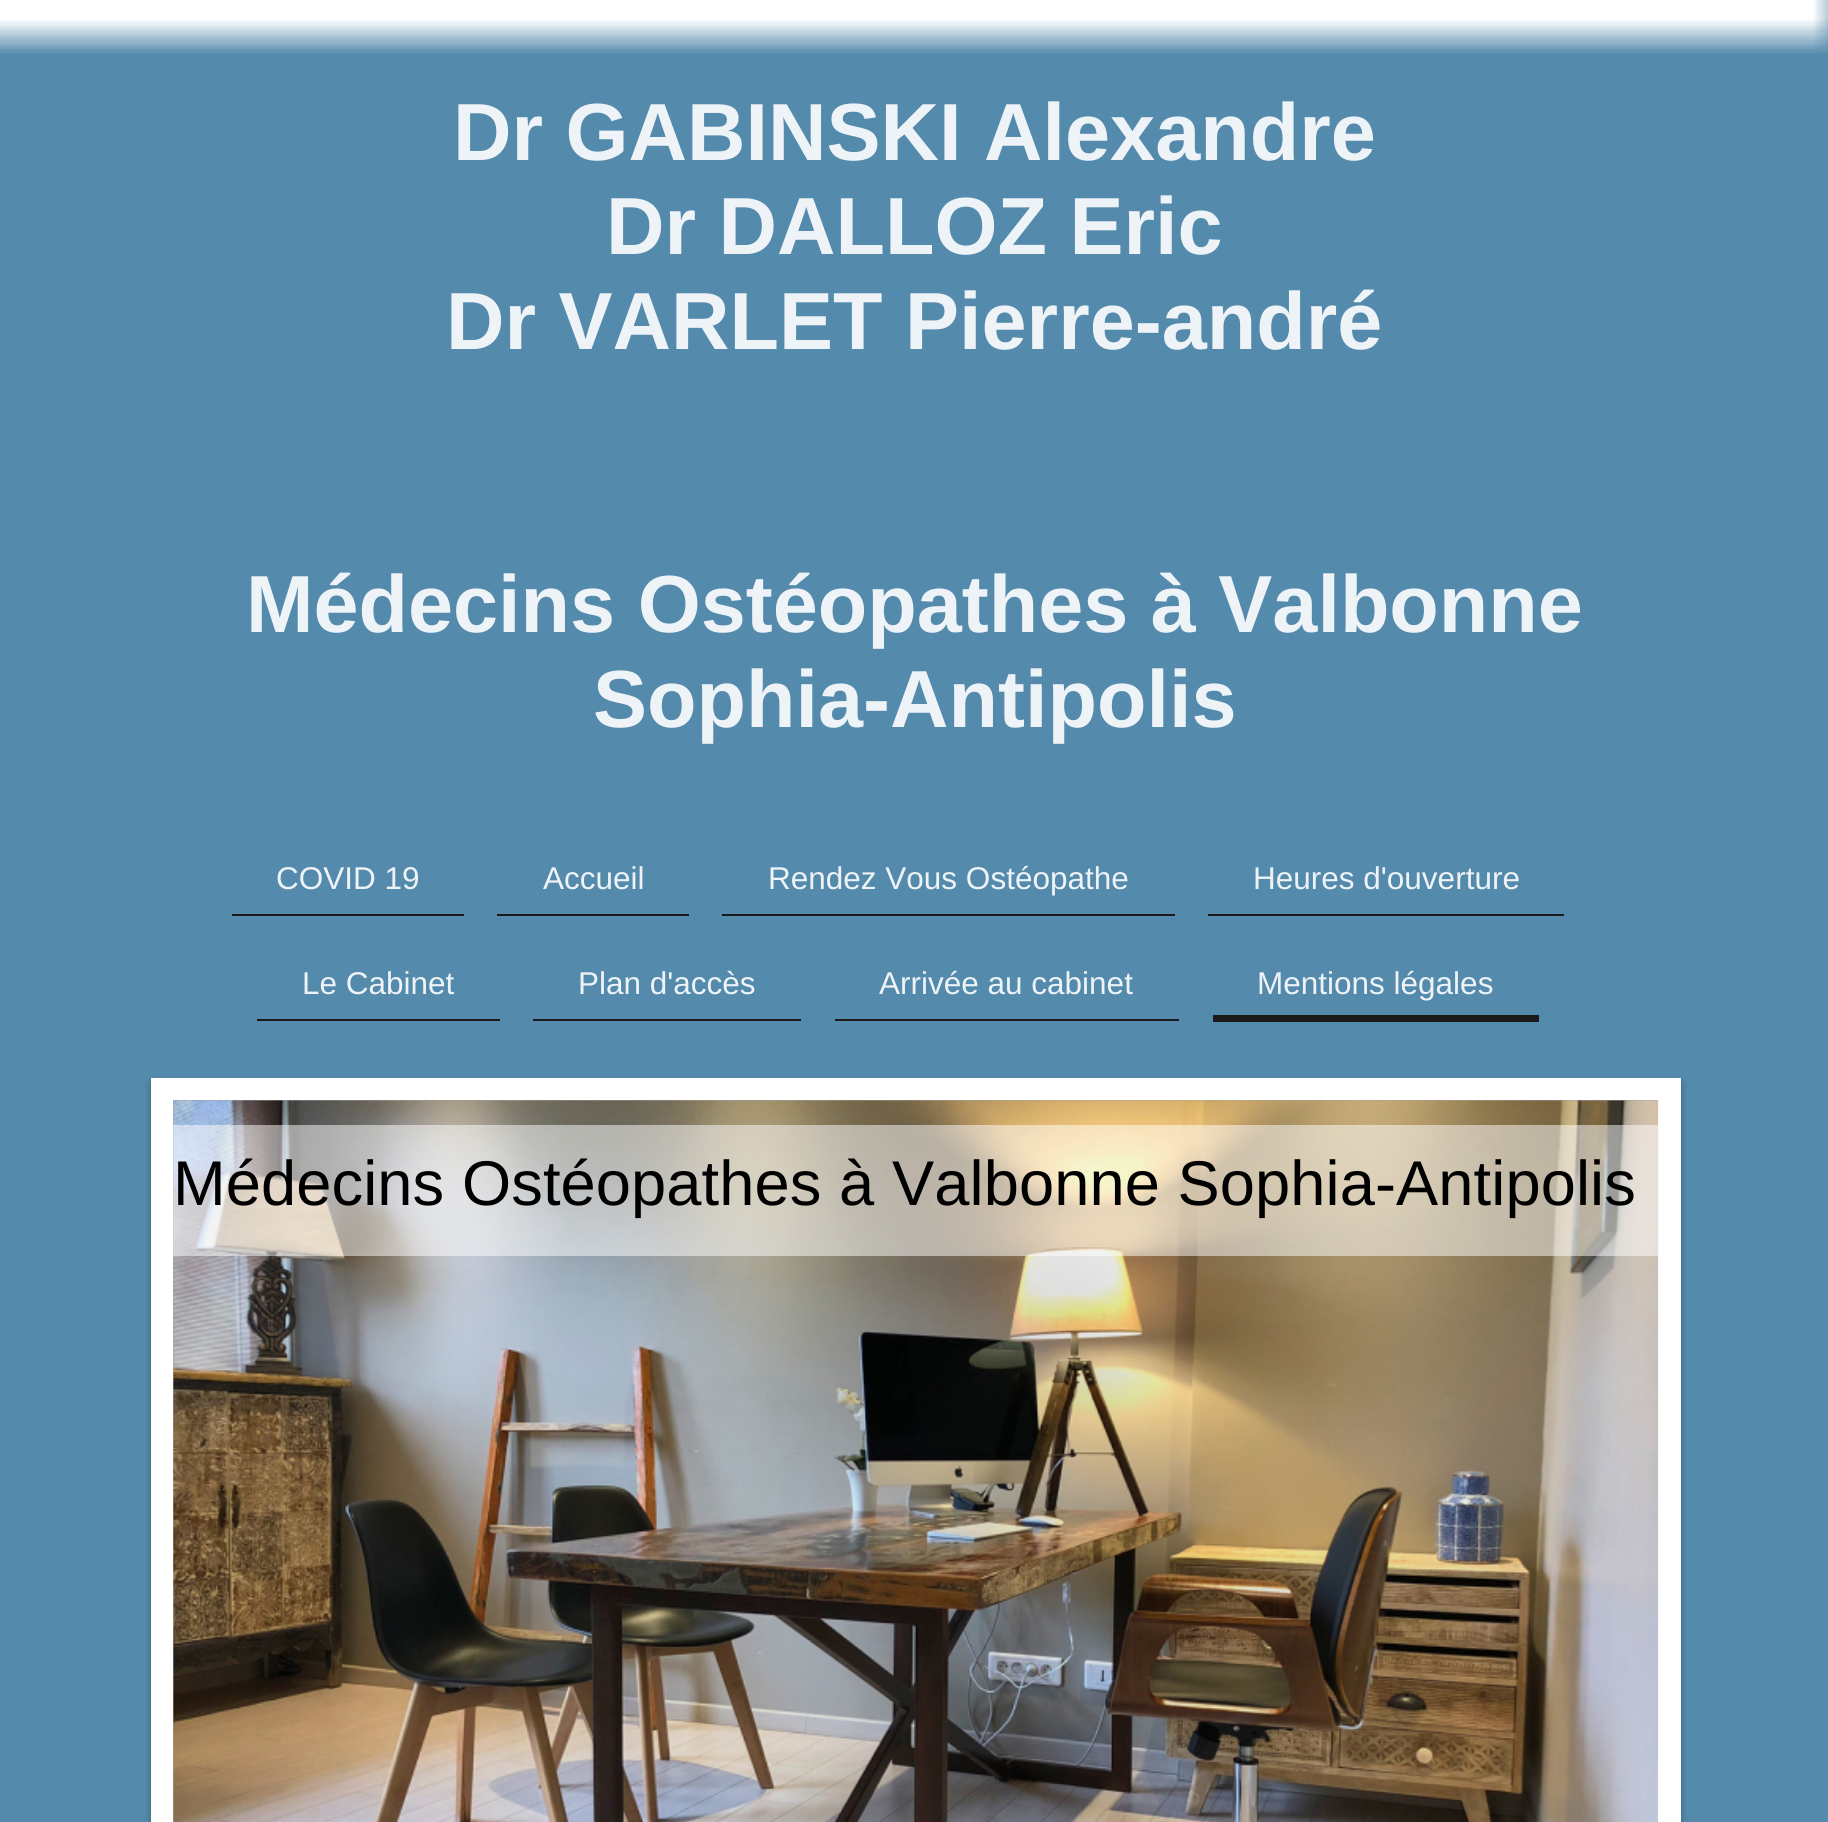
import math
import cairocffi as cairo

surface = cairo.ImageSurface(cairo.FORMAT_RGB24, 1828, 1822)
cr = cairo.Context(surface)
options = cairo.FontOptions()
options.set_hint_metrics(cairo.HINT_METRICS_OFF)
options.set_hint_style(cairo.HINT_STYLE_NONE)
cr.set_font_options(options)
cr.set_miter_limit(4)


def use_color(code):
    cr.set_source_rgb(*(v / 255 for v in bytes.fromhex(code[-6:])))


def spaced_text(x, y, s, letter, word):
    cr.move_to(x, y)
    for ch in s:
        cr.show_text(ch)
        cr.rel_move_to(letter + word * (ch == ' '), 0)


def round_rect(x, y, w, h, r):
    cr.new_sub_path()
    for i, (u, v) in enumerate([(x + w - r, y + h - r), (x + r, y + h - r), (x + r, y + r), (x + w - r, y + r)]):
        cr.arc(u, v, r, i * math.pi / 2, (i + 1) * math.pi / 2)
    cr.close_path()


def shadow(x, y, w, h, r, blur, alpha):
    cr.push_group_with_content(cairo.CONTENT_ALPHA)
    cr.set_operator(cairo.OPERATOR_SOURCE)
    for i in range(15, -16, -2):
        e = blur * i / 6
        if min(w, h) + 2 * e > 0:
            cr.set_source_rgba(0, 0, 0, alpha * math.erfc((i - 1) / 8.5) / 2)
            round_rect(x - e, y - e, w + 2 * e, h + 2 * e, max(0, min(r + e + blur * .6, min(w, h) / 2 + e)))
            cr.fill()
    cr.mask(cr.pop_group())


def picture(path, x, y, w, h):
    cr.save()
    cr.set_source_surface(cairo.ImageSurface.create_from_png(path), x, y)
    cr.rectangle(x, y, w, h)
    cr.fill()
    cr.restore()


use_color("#548aac")
cr.paint()
picture("img1.png", 0, 0, 1828, 54)
cr.select_font_face("Liberation Sans", cairo.FONT_SLANT_NORMAL, cairo.FONT_WEIGHT_BOLD)
cr.set_font_size(81)
use_color("#eef3f7")
cr.move_to(453, 160)
cr.show_text("Dr GABINSKI Alexandre")
cr.move_to(606, 254)
cr.show_text("Dr DALLOZ Eric")
cr.move_to(446, 349)
cr.show_text("Dr VARLET Pierre-andré")
cr.move_to(246, 632)
cr.show_text("Médecins Ostéopathes à Valbonne")
cr.move_to(593, 727)
cr.show_text("Sophia-Antipolis")
cr.select_font_face("Liberation Sans")
cr.set_font_size(31.5)
cr.move_to(276, 889)
cr.show_text("COVID 19")
use_color("#1a1a1a")
cr.rectangle(232, 914, 232, 2)
cr.fill()
use_color("#eef3f7")
cr.move_to(543, 889)
cr.show_text("Accueil")
use_color("#1a1a1a")
cr.rectangle(497, 914, 192, 2)
cr.fill()
use_color("#eef3f7")
cr.move_to(768, 889)
cr.show_text("Rendez Vous Ostéopathe")
use_color("#1a1a1a")
cr.rectangle(722, 914, 453, 2)
cr.fill()
use_color("#eef3f7")
cr.move_to(1253, 889)
cr.show_text("Heures d'ouverture")
use_color("#1a1a1a")
cr.rectangle(1208, 914, 356, 2)
cr.fill()
use_color("#eef3f7")
cr.move_to(302, 994)
cr.show_text("Le Cabinet")
use_color("#1a1a1a")
cr.rectangle(257, 1019, 243, 2)
cr.fill()
use_color("#eef3f7")
cr.move_to(578, 994)
cr.show_text("Plan d'accès")
use_color("#1a1a1a")
cr.rectangle(533, 1019, 268, 2)
cr.fill()
use_color("#eef3f7")
cr.move_to(879, 994)
cr.show_text("Arrivée au cabinet")
use_color("#1a1a1a")
cr.rectangle(835, 1019, 344, 2)
cr.fill()
use_color("#eef3f7")
cr.move_to(1257, 994)
cr.show_text("Mentions légales")
use_color("#1a1a1a")
cr.rectangle(1213, 1015, 326, 7)
cr.fill()
use_color("#000000")
shadow(151, 1082, 1530, 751, 0, 3.5, 0.3)
cr.rectangle(162.5, 1089.5, 1507, 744)
use_color("#ffffff")
cr.set_line_width(23)
cr.stroke()
use_color("#a0a0a0")
cr.rectangle(173, 1100, 1485, 722)
cr.fill()
picture("img3.png", 1658, 1100, 1, 722)
picture("img2.png", 173, 1100, 1486, 722)
cr.set_source_rgba(1, 1, 1, 0.5)
cr.rectangle(173, 1125, 1485, 131)
cr.fill()
cr.set_font_size(63.2)
use_color("#000000")
spaced_text(173, 1205, "Médecins Ostéopathes à Valbonne Sophia-Antipolis", 0.1, 0)
surface.write_to_png("result.png")
